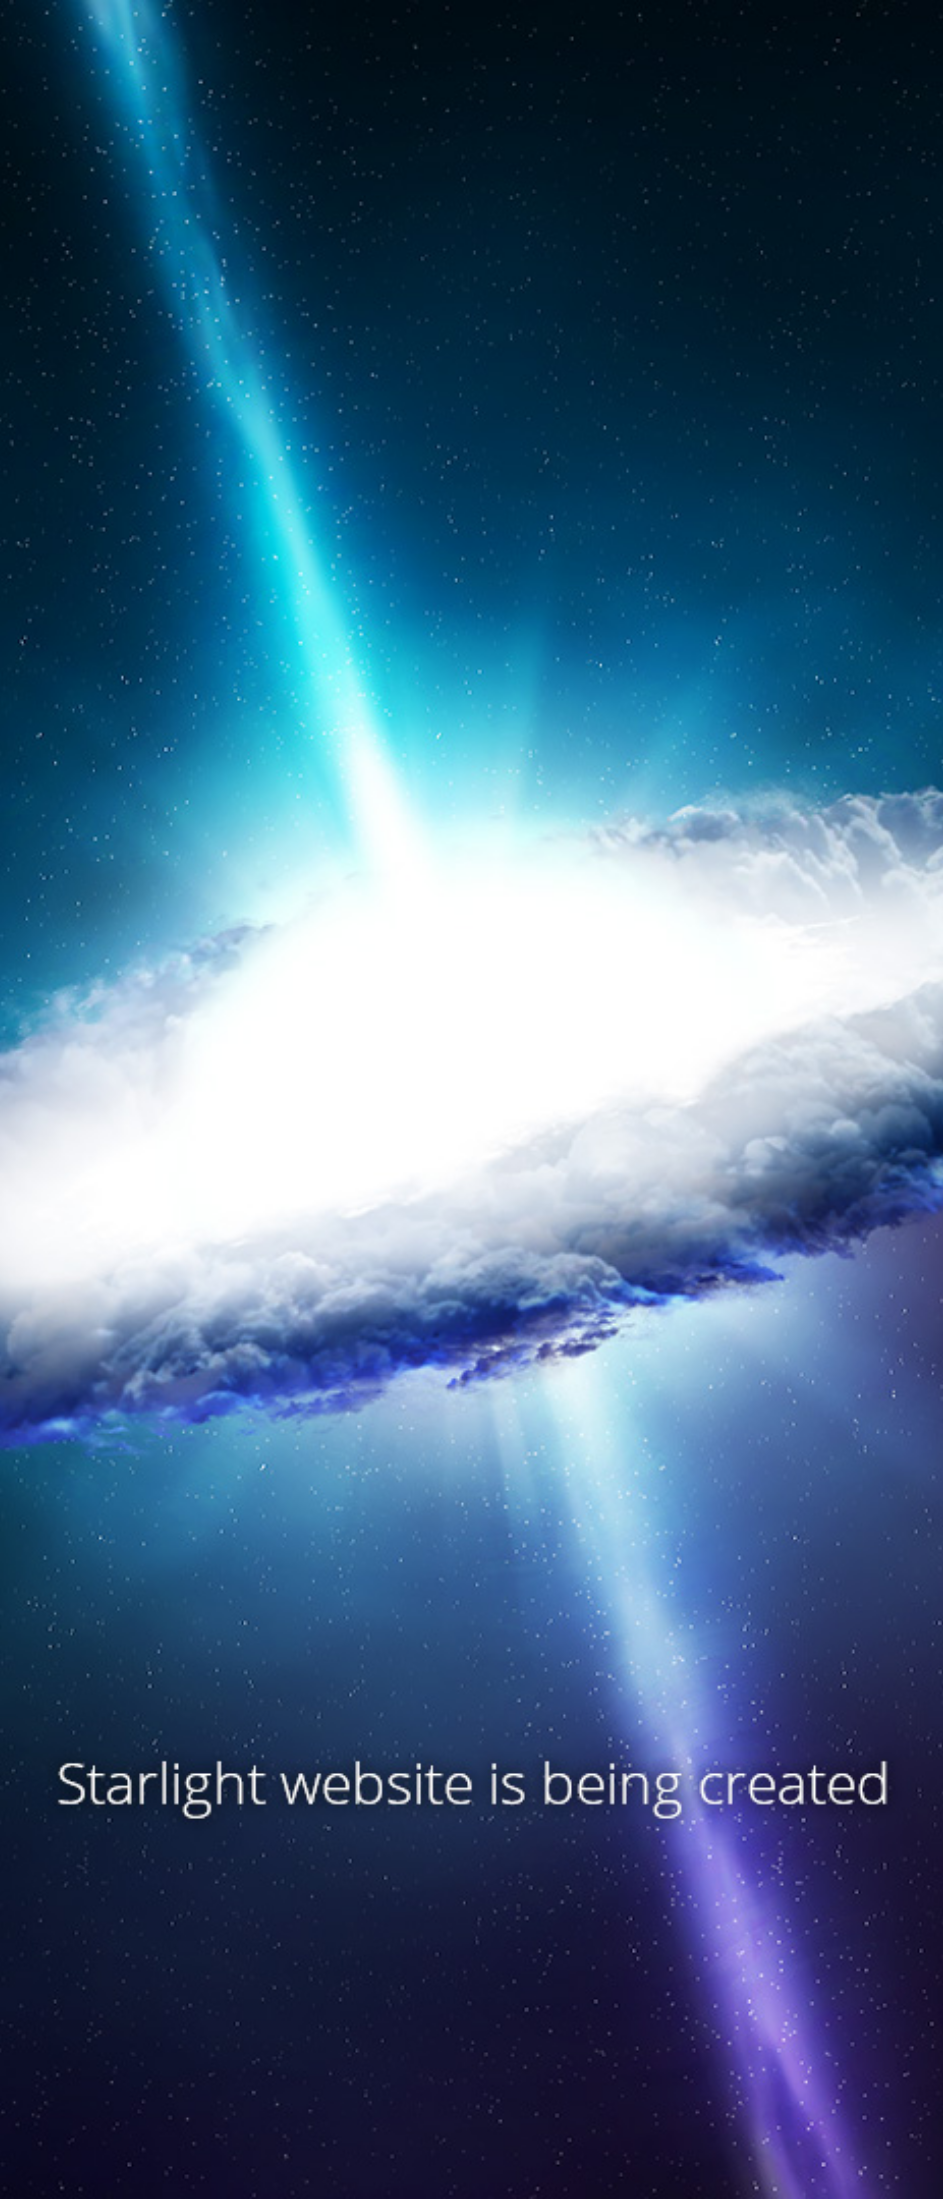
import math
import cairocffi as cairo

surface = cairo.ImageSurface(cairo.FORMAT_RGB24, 943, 2199)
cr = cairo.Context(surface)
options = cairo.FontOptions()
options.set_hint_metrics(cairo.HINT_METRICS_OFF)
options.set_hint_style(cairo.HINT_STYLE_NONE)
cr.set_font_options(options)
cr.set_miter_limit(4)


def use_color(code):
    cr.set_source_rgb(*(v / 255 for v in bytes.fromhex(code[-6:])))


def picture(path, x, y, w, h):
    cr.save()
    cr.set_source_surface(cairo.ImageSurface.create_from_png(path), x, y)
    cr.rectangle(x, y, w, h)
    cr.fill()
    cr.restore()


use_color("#ffffff")
cr.paint()
picture("img1.png", 0, 0, 943, 2199)
surface.write_to_png("result.png")
